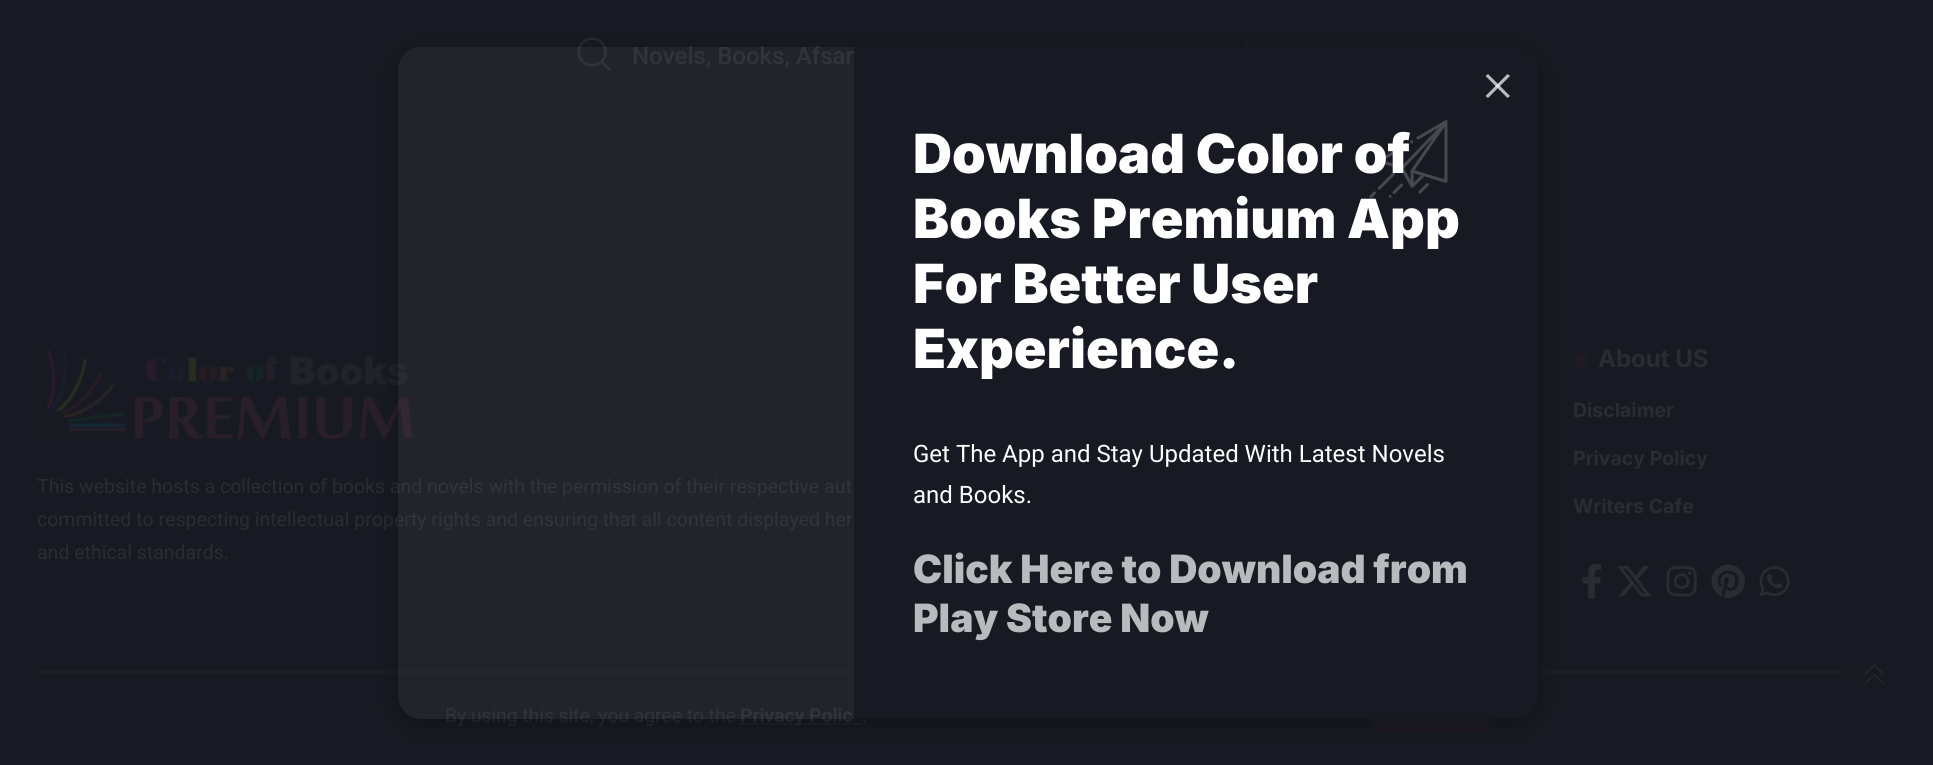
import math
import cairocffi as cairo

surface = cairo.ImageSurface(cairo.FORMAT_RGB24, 1933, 765)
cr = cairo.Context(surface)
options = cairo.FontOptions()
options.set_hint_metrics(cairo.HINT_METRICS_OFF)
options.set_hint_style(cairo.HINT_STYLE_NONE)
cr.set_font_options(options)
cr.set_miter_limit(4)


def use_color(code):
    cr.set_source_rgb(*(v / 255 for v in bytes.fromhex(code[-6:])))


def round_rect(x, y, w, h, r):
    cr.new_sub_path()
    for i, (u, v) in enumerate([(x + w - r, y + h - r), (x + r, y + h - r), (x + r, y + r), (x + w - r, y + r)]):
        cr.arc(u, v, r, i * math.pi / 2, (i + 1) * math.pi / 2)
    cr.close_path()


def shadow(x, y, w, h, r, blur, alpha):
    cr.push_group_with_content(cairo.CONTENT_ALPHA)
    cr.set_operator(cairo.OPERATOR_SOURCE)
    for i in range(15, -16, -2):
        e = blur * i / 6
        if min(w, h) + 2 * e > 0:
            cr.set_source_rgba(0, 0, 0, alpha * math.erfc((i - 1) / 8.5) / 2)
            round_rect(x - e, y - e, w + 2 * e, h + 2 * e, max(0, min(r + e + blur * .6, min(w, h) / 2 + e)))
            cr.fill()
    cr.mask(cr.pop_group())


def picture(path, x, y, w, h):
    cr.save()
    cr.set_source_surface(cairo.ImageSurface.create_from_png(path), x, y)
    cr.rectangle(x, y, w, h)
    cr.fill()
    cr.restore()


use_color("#171a22")
cr.paint()
picture("img1.png", 577, 37, 34, 34)
use_color("#1e1b25")
cr.rectangle(1245, 42, 3, 5)
cr.fill()
cr.select_font_face("Roboto Medium")
cr.set_font_size(24)
use_color("#2a2c34")
cr.move_to(632, 64)
cr.show_text("Novels, Books, Afsan")
picture("img2.png", 37, 346, 376, 93)
cr.select_font_face("Roboto")
cr.set_font_size(19.5)
cr.move_to(37, 493)
cr.show_text("This website hosts a collection of books and novels with the permission of their respective aut")
cr.move_to(37, 526)
cr.show_text("committed to respecting intellectual property rights and ensuring that all content displayed her")
cr.move_to(37, 559)
cr.show_text("and ethical standards.")
use_color("#1e1b25")
round_rect(1574, 353, 13, 15, 6.5)
cr.fill()
cr.select_font_face("Inter", cairo.FONT_SLANT_NORMAL, cairo.FONT_WEIGHT_BOLD)
cr.set_font_size(24)
use_color("#2a2c34")
cr.move_to(1598, 367)
cr.show_text("About US")
cr.set_font_size(19.5)
cr.move_to(1573, 417)
cr.show_text("Disclaimer")
cr.move_to(1573, 465)
cr.show_text("Privacy Policy")
cr.move_to(1573, 513)
cr.show_text("Writers Cafe")
picture("img3.png", 1582, 564, 19, 35)
picture("img4.png", 1617, 565, 35, 32)
picture("img5.png", 1666, 566, 31, 31)
picture("img6.png", 1711, 564, 34, 34)
picture("img7.png", 1759, 566, 31, 31)
use_color("#1c1f26")
cr.rectangle(38, 671, 1806, 2)
cr.fill()
cr.select_font_face("Roboto")
cr.set_font_size(19.25)
use_color("#2a2c34")
cr.move_to(445, 722)
cr.show_text("By using this site, you agree to the")
cr.new_path()
cr.move_to(739.5, 724)
cr.line_to(861.5, 724)
cr.set_line_width(1.5)
cr.set_dash([1.5, 1.5])
cr.stroke()
cr.select_font_face("Roboto", cairo.FONT_SLANT_NORMAL, cairo.FONT_WEIGHT_BOLD)
cr.move_to(740, 722)
cr.show_text("Privacy Polic")
cr.select_font_face("Roboto")
cr.move_to(862, 722)
cr.show_text(".")
use_color("#1e1b25")
round_rect(1370, 699, 120, 33, 11)
cr.fill()
cr.save()
cr.set_fill_rule(cairo.FILL_RULE_EVEN_ODD)
cr.new_path()
cr.move_to(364, 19)
cr.line_to(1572, 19)
cr.line_to(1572, 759)
cr.line_to(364, 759)
cr.close_path()
cr.move_to(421, 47)
cr.line_to(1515, 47)
cr.curve_to(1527.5, 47, 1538, 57.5, 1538, 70)
cr.line_to(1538, 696)
cr.curve_to(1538, 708.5, 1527.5, 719, 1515, 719)
cr.line_to(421, 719)
cr.curve_to(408.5, 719, 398, 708.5, 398, 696)
cr.line_to(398, 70)
cr.curve_to(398, 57.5, 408.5, 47, 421, 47)
cr.close_path()
cr.clip()
use_color("#000000")
shadow(398, 53, 1140, 672, 23, 11, 0.3)
cr.restore()
use_color("#171a22")
cr.new_path()
cr.move_to(854, 47)
cr.line_to(1515, 47)
cr.curve_to(1527.5, 47, 1538, 57.5, 1538, 70)
cr.line_to(1538, 696)
cr.curve_to(1538, 708.5, 1527.5, 719, 1515, 719)
cr.line_to(854, 719)
cr.close_path()
cr.fill()
use_color("#b9babd")
cr.new_path()
cr.move_to(1488, 74)
cr.line_to(1510, 96)
cr.line_to(1507.5, 98)
cr.line_to(1485.5, 76)
cr.close_path()
cr.fill()
cr.set_source_rgba(1, 1, 1, 0.7)
cr.new_path()
cr.move_to(1485.5, 96)
cr.line_to(1507.5, 74)
cr.line_to(1510, 76)
cr.line_to(1488, 98)
cr.close_path()
cr.fill()
cr.set_source_rgba(0.533, 0.533, 0.533, 0.09)
cr.new_path()
cr.move_to(421, 47)
cr.line_to(854, 47)
cr.line_to(854, 719)
cr.line_to(421, 719)
cr.curve_to(408.5, 719, 398, 708.5, 398, 696)
cr.line_to(398, 70)
cr.curve_to(398, 57.5, 408.5, 47, 421, 47)
cr.close_path()
cr.fill()
cr.select_font_face("Inter Black")
cr.set_font_size(54)
use_color("#ffffff")
cr.move_to(913, 173)
cr.show_text("Download Color of")
cr.move_to(913, 238)
cr.show_text("Books Premium App")
picture("img8.png", 1369, 120, 79, 78)
cr.move_to(913, 303)
cr.show_text("For Better User")
cr.move_to(913, 368)
cr.show_text("Experience.")
cr.select_font_face("Roboto")
cr.set_font_size(24)
cr.move_to(913, 462)
cr.show_text("Get The App and Stay Updated With Latest Novels")
cr.move_to(913, 503)
cr.show_text("and Books.")
cr.select_font_face("Inter Black")
cr.set_font_size(39)
use_color("#b9babd")
cr.move_to(913, 583)
cr.show_text("Click Here to Download from")
cr.move_to(913, 632)
cr.show_text("Play Store Now")
picture("img9.png", 1864, 664, 20, 20)
surface.write_to_png("result.png")
